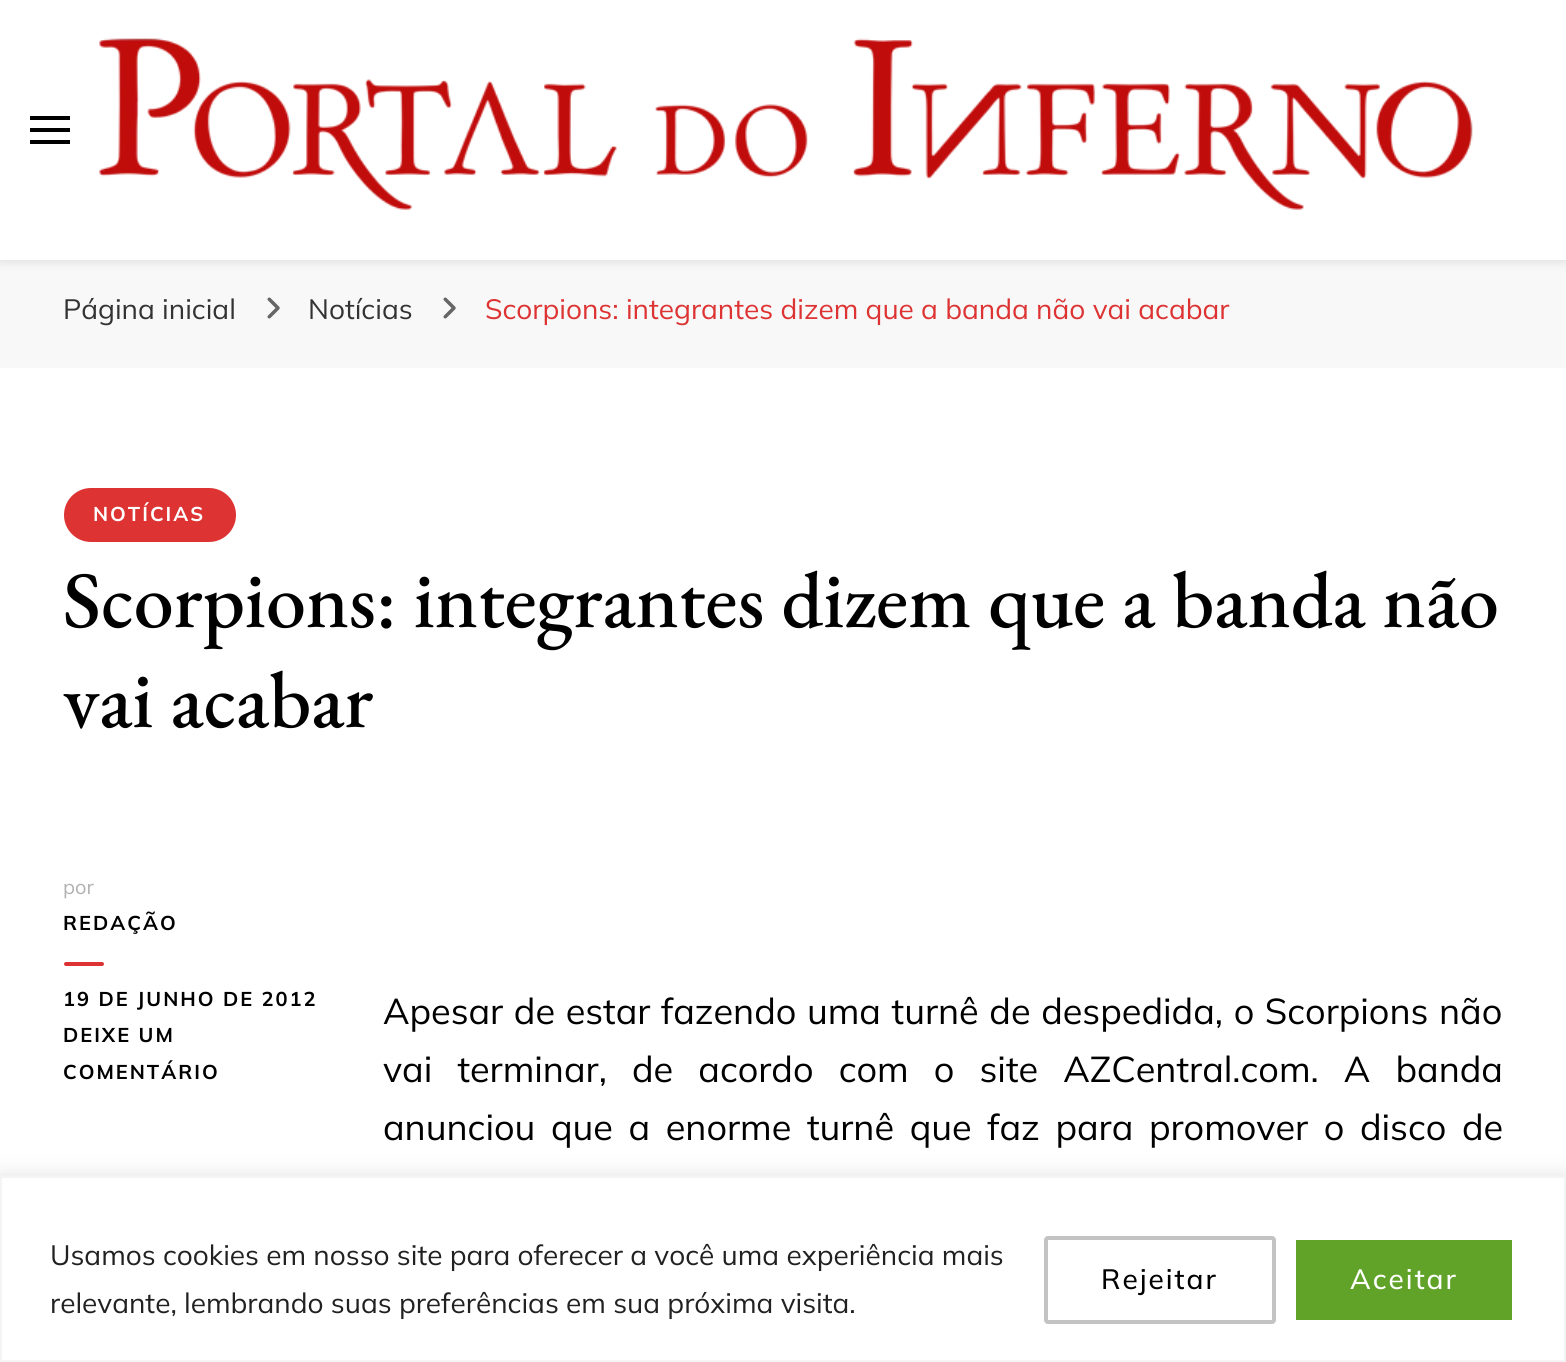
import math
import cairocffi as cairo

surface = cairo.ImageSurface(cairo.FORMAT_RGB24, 1566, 1362)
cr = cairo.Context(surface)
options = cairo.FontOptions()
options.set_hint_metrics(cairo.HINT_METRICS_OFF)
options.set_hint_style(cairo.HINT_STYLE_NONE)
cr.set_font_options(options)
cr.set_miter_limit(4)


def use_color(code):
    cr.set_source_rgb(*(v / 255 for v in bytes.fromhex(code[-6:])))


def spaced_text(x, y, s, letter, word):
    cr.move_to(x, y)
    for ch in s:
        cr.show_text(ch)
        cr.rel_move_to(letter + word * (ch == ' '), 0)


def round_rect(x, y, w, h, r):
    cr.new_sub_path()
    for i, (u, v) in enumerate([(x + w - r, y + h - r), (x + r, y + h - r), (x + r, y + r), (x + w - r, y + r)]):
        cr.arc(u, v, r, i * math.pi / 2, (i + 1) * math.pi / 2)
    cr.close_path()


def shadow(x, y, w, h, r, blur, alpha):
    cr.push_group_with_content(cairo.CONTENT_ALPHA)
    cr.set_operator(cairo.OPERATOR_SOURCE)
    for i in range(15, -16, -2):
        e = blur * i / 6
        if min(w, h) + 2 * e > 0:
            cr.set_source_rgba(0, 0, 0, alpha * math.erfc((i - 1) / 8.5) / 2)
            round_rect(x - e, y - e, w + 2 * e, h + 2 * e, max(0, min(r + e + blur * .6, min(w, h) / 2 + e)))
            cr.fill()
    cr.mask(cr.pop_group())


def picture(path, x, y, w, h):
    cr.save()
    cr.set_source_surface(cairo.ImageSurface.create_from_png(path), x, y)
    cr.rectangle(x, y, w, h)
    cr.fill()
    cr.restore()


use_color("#f8f8f8")
cr.paint()
use_color("#000000")
shadow(0, 2, 1566, 260, 0, 5, 0.1)
use_color("#ffffff")
cr.rectangle(0, 0, 1566, 260)
cr.fill()
use_color("#000000")
cr.rectangle(30, 116, 40, 4)
cr.fill()
cr.rectangle(30, 128, 40, 4)
cr.fill()
cr.rectangle(30, 140, 40, 4)
cr.fill()
picture("img1.png", 99, 38, 1374, 172)
cr.select_font_face("Mulish")
cr.set_font_size(28)
use_color("#333333")
cr.move_to(63, 319)
cr.show_text("Página inicial")
picture("img2.png", 267, 297, 13, 22)
cr.move_to(308, 319)
cr.show_text("Notícias")
picture("img2.png", 443, 297, 13, 22)
use_color("#dd3333")
cr.move_to(485, 319)
cr.show_text("Scorpions: integrantes dizem que a banda não vai acabar")
use_color("#ffffff")
cr.rectangle(0, 368, 1566, 808)
cr.fill()
use_color("#dd3333")
round_rect(64, 488, 172, 54, 27)
cr.fill()
cr.select_font_face("Mulish", cairo.FONT_SLANT_NORMAL, cairo.FONT_WEIGHT_BOLD)
cr.set_font_size(20)
use_color("#ffffff")
spaced_text(93, 521, "NOTÍCIAS", 2, 0)
cr.select_font_face("EB Garamond Medium")
cr.set_font_size(80)
use_color("#000000")
cr.move_to(63, 627)
cr.show_text("Scorpions: integrantes dizem que a banda não")
cr.move_to(63, 727)
cr.show_text("vai acabar")
cr.select_font_face("Mulish")
cr.set_font_size(20)
use_color("#b1b1b2")
cr.move_to(63, 894)
cr.show_text("por")
cr.select_font_face("Mulish", cairo.FONT_SLANT_NORMAL, cairo.FONT_WEIGHT_BOLD)
use_color("#000000")
spaced_text(63, 930, "REDAÇÃO", 2, 0)
use_color("#dd3333")
round_rect(64, 962, 40, 4, 2)
cr.fill()
use_color("#000000")
spaced_text(63, 1006, "19 DE JUNHO DE 2012", 2, 0)
spaced_text(63, 1042, "DEIXE UM", 2, 0)
spaced_text(63, 1079, "COMENTÁRIO", 2, 0)
cr.select_font_face("Mulish")
cr.set_font_size(36)
spaced_text(383, 1024, "Apesar de estar fazendo uma turnê de despedida, o Scorpions não", 0, 1.25)
spaced_text(383, 1082, "vai terminar, de acordo com o site AZCentral.com. A banda", 0, 15.75)
spaced_text(383, 1140, "anunciou que a enorme turnê que faz para promover o disco de", 0, 6.25)
use_color("#acabab")
shadow(0, 1174, 1566, 186, 0, 10, 0.3)
use_color("#ffffff")
cr.rectangle(1, 1177, 1564, 184)
cr.fill_preserve()
use_color("#f4f4f4")
cr.stroke()
cr.set_font_size(28)
use_color("#212121")
cr.move_to(50, 1265)
cr.show_text("Usamos cookies em nosso site para oferecer a você uma experiência mais")
cr.move_to(50, 1313)
cr.show_text("relevante, lembrando suas preferências em sua próxima visita.")
round_rect(1046, 1238, 228, 84, 2)
use_color("#c3c3c3")
cr.set_line_width(4)
cr.stroke()
cr.select_font_face("Mulish Medium")
use_color("#000000")
spaced_text(1101, 1289, "Rejeitar", 2, 0)
use_color("#61a229")
round_rect(1294, 1238, 220, 84, 2)
cr.fill_preserve()
use_color("#ffffff")
cr.stroke()
spaced_text(1350, 1289, "Aceitar", 2, 0)
surface.write_to_png("result.png")
